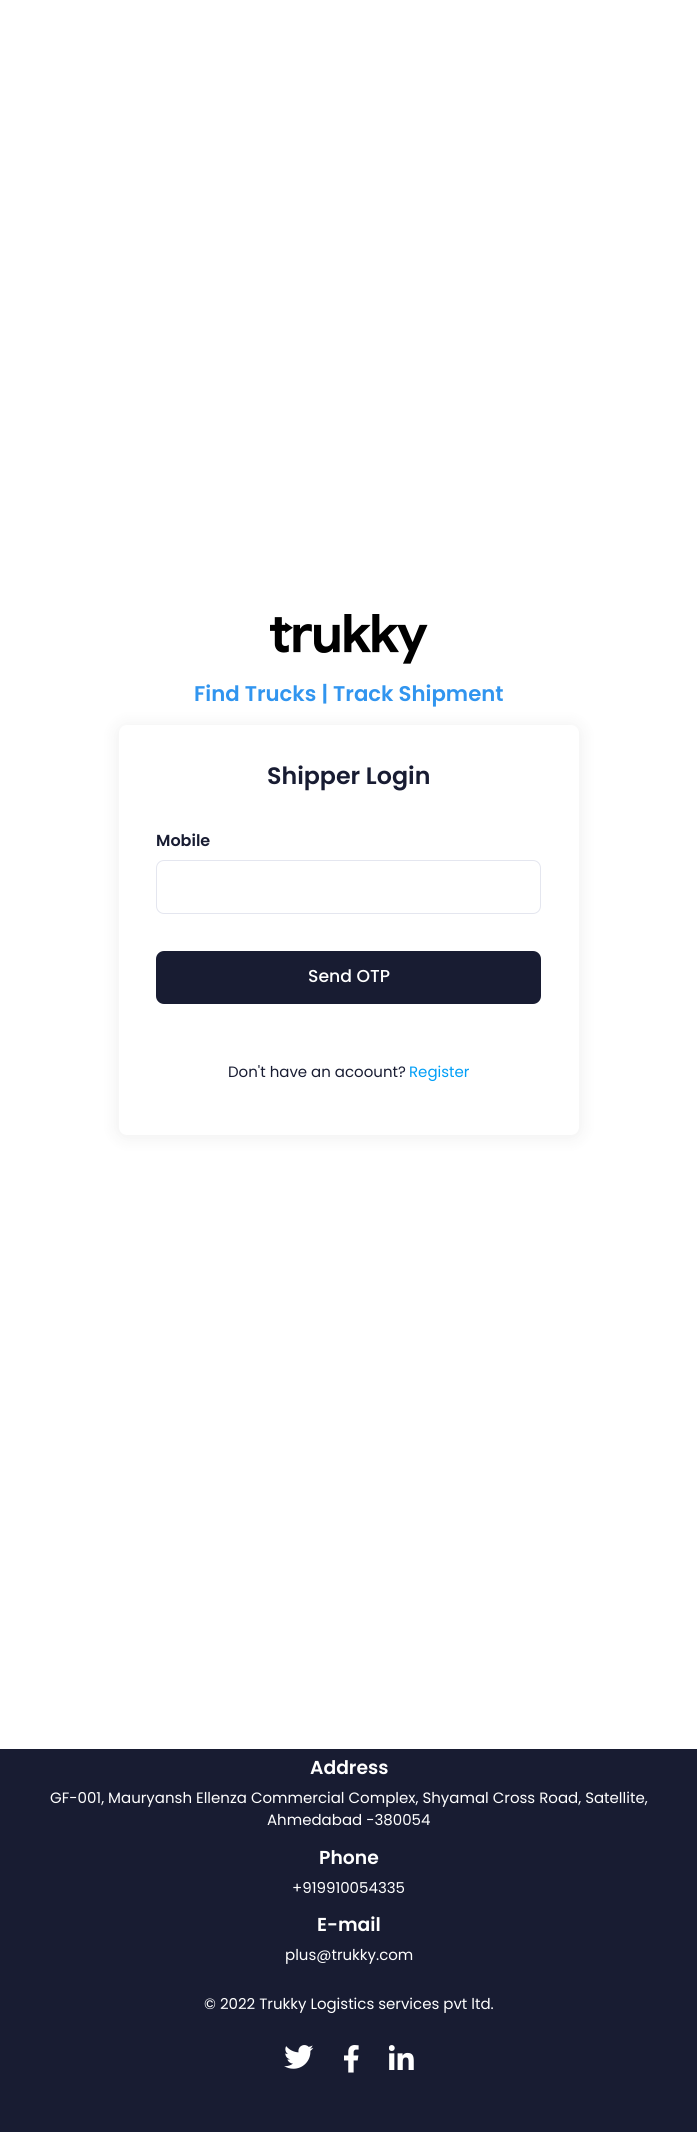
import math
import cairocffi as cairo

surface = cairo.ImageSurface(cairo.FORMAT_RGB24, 697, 2132)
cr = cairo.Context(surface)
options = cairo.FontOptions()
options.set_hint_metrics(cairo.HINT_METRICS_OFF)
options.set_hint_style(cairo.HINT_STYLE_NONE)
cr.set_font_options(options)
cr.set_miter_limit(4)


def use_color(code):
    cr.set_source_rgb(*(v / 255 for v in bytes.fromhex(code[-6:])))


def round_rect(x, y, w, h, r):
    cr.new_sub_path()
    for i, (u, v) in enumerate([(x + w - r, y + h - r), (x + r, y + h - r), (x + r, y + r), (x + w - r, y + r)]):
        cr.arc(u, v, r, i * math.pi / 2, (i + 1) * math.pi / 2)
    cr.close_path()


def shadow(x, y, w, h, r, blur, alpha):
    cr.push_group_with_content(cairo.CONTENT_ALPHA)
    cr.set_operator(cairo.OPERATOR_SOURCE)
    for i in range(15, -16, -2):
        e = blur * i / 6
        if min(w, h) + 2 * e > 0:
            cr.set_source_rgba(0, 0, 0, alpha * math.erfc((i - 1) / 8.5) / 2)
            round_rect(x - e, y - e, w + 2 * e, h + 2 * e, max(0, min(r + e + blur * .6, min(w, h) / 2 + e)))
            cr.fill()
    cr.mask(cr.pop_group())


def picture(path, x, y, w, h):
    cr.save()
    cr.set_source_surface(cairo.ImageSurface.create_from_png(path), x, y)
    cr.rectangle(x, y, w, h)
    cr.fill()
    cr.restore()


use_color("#ffffff")
cr.paint()
picture("img1.png", 270, 614, 158, 50)
cr.select_font_face("Poppins SemiBold")
cr.set_font_size(21.25)
use_color("#3195ef")
cr.move_to(194, 701)
cr.show_text("Find Trucks | Track Shipment")
use_color("#000000")
shadow(115, 723, 468, 417, 11, 7.5, 0.05)
use_color("#ffffff")
round_rect(119, 725, 460, 410, 8)
cr.fill()
cr.set_font_size(23.75)
use_color("#181c32")
cr.move_to(267, 784)
cr.show_text("Shipper Login")
cr.set_font_size(16)
cr.move_to(156, 846)
cr.show_text("Mobile")
round_rect(156.5, 860.5, 384, 53, 7.5)
use_color("#e4e6ef")
cr.set_line_width(1)
cr.stroke()
use_color("#181c32")
round_rect(156, 951, 385, 53, 8)
cr.fill()
cr.select_font_face("Poppins Medium")
cr.set_font_size(17.25)
use_color("#ffffff")
cr.move_to(308, 982)
cr.show_text("Send OTP")
cr.select_font_face("Poppins")
cr.set_font_size(15)
use_color("#181c32")
cr.move_to(228, 1077)
cr.show_text("Don't have an acoount?")
use_color("#009ef7")
cr.move_to(409, 1077)
cr.show_text("Register")
use_color("#181c32")
cr.rectangle(0, 1749, 697, 383)
cr.fill()
cr.select_font_face("Poppins SemiBold")
cr.set_font_size(18.75)
use_color("#ffffff")
cr.move_to(310, 1774)
cr.show_text("Address")
cr.select_font_face("Poppins")
cr.set_font_size(15)
cr.move_to(50, 1803)
cr.show_text("GF-001, Mauryansh Ellenza Commercial Complex, Shyamal Cross Road, Satellite,")
cr.move_to(267, 1825)
cr.show_text("Ahmedabad -380054")
cr.select_font_face("Poppins SemiBold")
cr.set_font_size(18.75)
cr.move_to(319, 1864)
cr.show_text("Phone")
cr.select_font_face("Poppins")
cr.set_font_size(15)
cr.move_to(292, 1893)
cr.show_text("+919910054335")
cr.select_font_face("Poppins SemiBold")
cr.set_font_size(18.75)
cr.move_to(317, 1931)
cr.show_text("E-mail")
cr.select_font_face("Poppins")
cr.set_font_size(15)
cr.move_to(285, 1960)
cr.show_text("plus@trukky.com")
cr.move_to(204, 2009)
cr.show_text("© 2022 Trukky Logistics services pvt ltd.")
picture("img2.png", 284, 2045, 30, 24)
picture("img3.png", 344, 2045, 15, 28)
picture("img4.png", 389, 2045, 25, 25)
surface.write_to_png("result.png")
